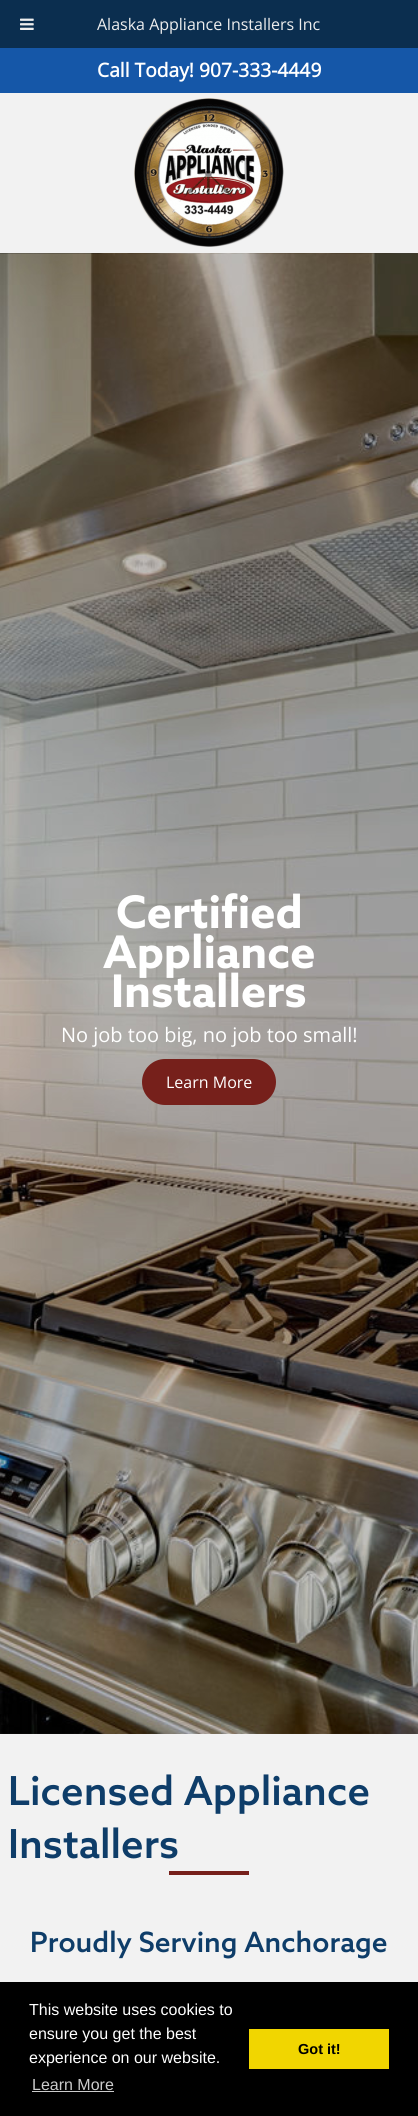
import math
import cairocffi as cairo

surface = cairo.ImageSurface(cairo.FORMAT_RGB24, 418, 2116)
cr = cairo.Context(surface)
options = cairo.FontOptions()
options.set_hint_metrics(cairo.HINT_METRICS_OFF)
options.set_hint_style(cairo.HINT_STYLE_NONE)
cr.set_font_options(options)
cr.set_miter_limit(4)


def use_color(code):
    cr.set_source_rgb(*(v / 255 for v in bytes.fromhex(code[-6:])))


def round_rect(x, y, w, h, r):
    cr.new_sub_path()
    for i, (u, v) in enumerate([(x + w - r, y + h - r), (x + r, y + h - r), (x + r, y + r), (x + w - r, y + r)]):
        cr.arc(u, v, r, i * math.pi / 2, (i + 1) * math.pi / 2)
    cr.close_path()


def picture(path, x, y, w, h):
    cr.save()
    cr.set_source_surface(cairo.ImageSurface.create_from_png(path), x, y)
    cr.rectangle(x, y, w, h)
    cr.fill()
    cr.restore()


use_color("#1557a8")
cr.paint()
use_color("#0b2e4f")
cr.rectangle(0, 0, 418, 48)
cr.fill()
picture("img1.png", 20, 18, 14, 12)
cr.select_font_face("Open Sans")
cr.set_font_size(16)
use_color("#eeeeee")
cr.move_to(97, 30)
cr.show_text("Alaska Appliance Installers Inc")
cr.select_font_face("Open Sans", cairo.FONT_SLANT_NORMAL, cairo.FONT_WEIGHT_BOLD)
cr.set_font_size(19.25)
use_color("#ffffff")
cr.move_to(97, 77)
cr.show_text("Call Today! 907-333-4449")
use_color("#f2f2f2")
cr.rectangle(0, 93, 418, 160)
cr.fill()
picture("img2.png", 134, 98, 150, 149)
picture("img3.png", 0, 253, 418, 1481)
cr.select_font_face("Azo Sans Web", cairo.FONT_SLANT_NORMAL, cairo.FONT_WEIGHT_BOLD)
cr.set_font_size(45)
use_color("#ffffff")
cr.move_to(116, 928)
cr.show_text("Certified")
cr.move_to(103, 968)
cr.show_text("Appliance")
cr.move_to(111, 1007)
cr.show_text("Installers")
cr.select_font_face("Open Sans")
cr.set_font_size(20)
cr.move_to(61, 1042)
cr.show_text("No job too big, no job too small!")
use_color("#76201b")
round_rect(142, 1059, 134, 46, 23)
cr.fill()
cr.set_font_size(16)
use_color("#ffffff")
cr.move_to(166, 1088)
cr.show_text("Learn More")
use_color("#f2f2f2")
cr.rectangle(0, 1734, 418, 248)
cr.fill()
cr.select_font_face("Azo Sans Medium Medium")
cr.set_font_size(40)
use_color("#0e3d69")
cr.move_to(8, 1805)
cr.show_text("Licensed Appliance")
cr.move_to(8, 1858)
cr.show_text("Installers")
use_color("#76201b")
cr.rectangle(169, 1871, 80, 4)
cr.fill()
cr.set_font_size(28)
use_color("#0e3d69")
cr.move_to(30, 1952)
cr.show_text("Proudly Serving Anchorage")
use_color("#000000")
cr.rectangle(0, 1982, 418, 134)
cr.fill()
cr.select_font_face("Liberation Sans")
cr.set_font_size(16)
use_color("#ffffff")
cr.move_to(29, 2015)
cr.show_text("This website uses cookies to")
cr.move_to(29, 2039)
cr.show_text("ensure you get the best")
cr.move_to(29, 2063)
cr.show_text("experience on our website.")
use_color("#cccccc")
cr.move_to(32, 2090)
cr.show_text("Learn More")
cr.rectangle(32, 2091, 82, 1)
cr.fill()
use_color("#f1d600")
cr.rectangle(249, 2029, 140, 40)
cr.fill()
cr.select_font_face("Liberation Sans", cairo.FONT_SLANT_NORMAL, cairo.FONT_WEIGHT_BOLD)
cr.set_font_size(14.5)
use_color("#000000")
cr.move_to(298, 2054)
cr.show_text("Got it!")
surface.write_to_png("result.png")
